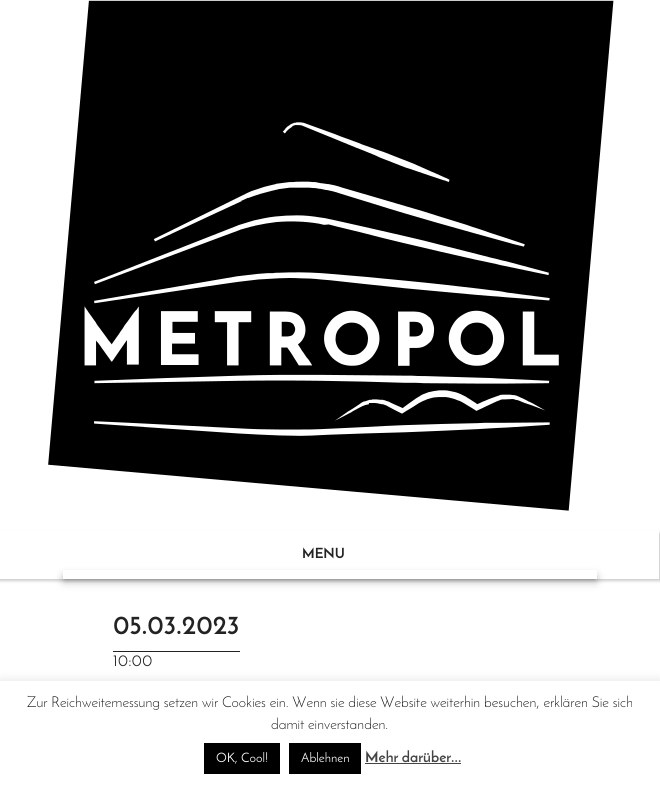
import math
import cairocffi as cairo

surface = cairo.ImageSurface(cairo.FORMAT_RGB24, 660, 786)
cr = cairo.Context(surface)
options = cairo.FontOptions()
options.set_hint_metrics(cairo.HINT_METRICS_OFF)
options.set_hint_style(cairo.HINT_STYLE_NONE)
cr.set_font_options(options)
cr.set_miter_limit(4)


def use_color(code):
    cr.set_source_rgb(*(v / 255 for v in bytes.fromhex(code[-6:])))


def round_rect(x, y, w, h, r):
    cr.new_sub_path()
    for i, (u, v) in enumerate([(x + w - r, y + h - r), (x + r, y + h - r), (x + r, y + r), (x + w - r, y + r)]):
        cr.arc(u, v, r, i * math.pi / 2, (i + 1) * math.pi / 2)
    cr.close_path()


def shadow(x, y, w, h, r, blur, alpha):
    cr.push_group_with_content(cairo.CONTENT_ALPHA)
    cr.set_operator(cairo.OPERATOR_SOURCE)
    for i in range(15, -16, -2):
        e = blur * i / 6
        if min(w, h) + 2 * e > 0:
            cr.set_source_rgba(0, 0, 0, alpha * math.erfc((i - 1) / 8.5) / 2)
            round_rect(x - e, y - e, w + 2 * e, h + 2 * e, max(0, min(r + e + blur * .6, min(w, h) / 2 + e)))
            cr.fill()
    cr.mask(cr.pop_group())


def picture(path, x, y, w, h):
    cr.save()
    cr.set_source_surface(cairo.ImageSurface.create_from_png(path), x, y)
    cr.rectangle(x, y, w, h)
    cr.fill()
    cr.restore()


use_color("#ffffff")
cr.paint()
picture("img1.png", 48, 0, 566, 511)
use_color("#000000")
shadow(66, 578, 528, 1, 0, 5, 0.5)
use_color("#ffffff")
cr.rectangle(63, 570, 534, 9)
cr.fill()
cr.save()
cr.set_fill_rule(cairo.FILL_RULE_EVEN_ODD)
cr.new_path()
cr.move_to(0, 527)
cr.line_to(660, 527)
cr.line_to(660, 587)
cr.line_to(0, 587)
cr.close_path()
cr.move_to(-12, 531)
cr.line_to(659, 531)
cr.line_to(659, 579)
cr.line_to(-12, 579)
cr.close_path()
cr.clip()
use_color("#000000")
shadow(-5, 533, 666, 48, 0, 1.5, 0.2)
cr.restore()
cr.select_font_face("Josefin Sans", cairo.FONT_SLANT_NORMAL, cairo.FONT_WEIGHT_BOLD)
cr.set_font_size(14)
use_color("#232323")
cr.move_to(302, 558)
cr.show_text("MENU")
cr.rectangle(113, 651, 127, 1)
cr.fill()
cr.set_font_size(26)
cr.move_to(113, 634)
cr.show_text("05.03.2023")
cr.select_font_face("Josefin Sans")
cr.set_font_size(16)
cr.move_to(113, 666)
cr.show_text("10:00")
use_color("#acabab")
shadow(0, 680, 660, 105, 0, 5, 0.3)
use_color("#ffffff")
cr.rectangle(0, 681, 660, 105)
cr.fill()
cr.select_font_face("Josefin Sans Light")
cr.set_font_size(15)
use_color("#000000")
cr.move_to(27, 707)
cr.show_text("Zur Reichweitemessung setzen wir Cookies ein. Wenn sie diese Website weiterhin besuchen, erklären Sie sich")
cr.move_to(271, 729)
cr.show_text("damit einverstanden.")
cr.rectangle(204, 743, 76, 31)
cr.fill()
cr.select_font_face("Josefin Sans")
cr.set_font_size(13)
use_color("#ffffff")
cr.move_to(216, 762)
cr.show_text("OK, Cool!")
use_color("#000000")
cr.rectangle(289, 743, 72, 31)
cr.fill()
use_color("#ffffff")
cr.move_to(301, 762)
cr.show_text("Ablehnen")
cr.select_font_face("Josefin Sans", cairo.FONT_SLANT_NORMAL, cairo.FONT_WEIGHT_BOLD)
cr.set_font_size(15)
use_color("#444444")
cr.move_to(365, 762)
cr.show_text("Mehr darüber...")
cr.rectangle(365, 763, 96, 1)
cr.fill()
surface.write_to_png("result.png")
